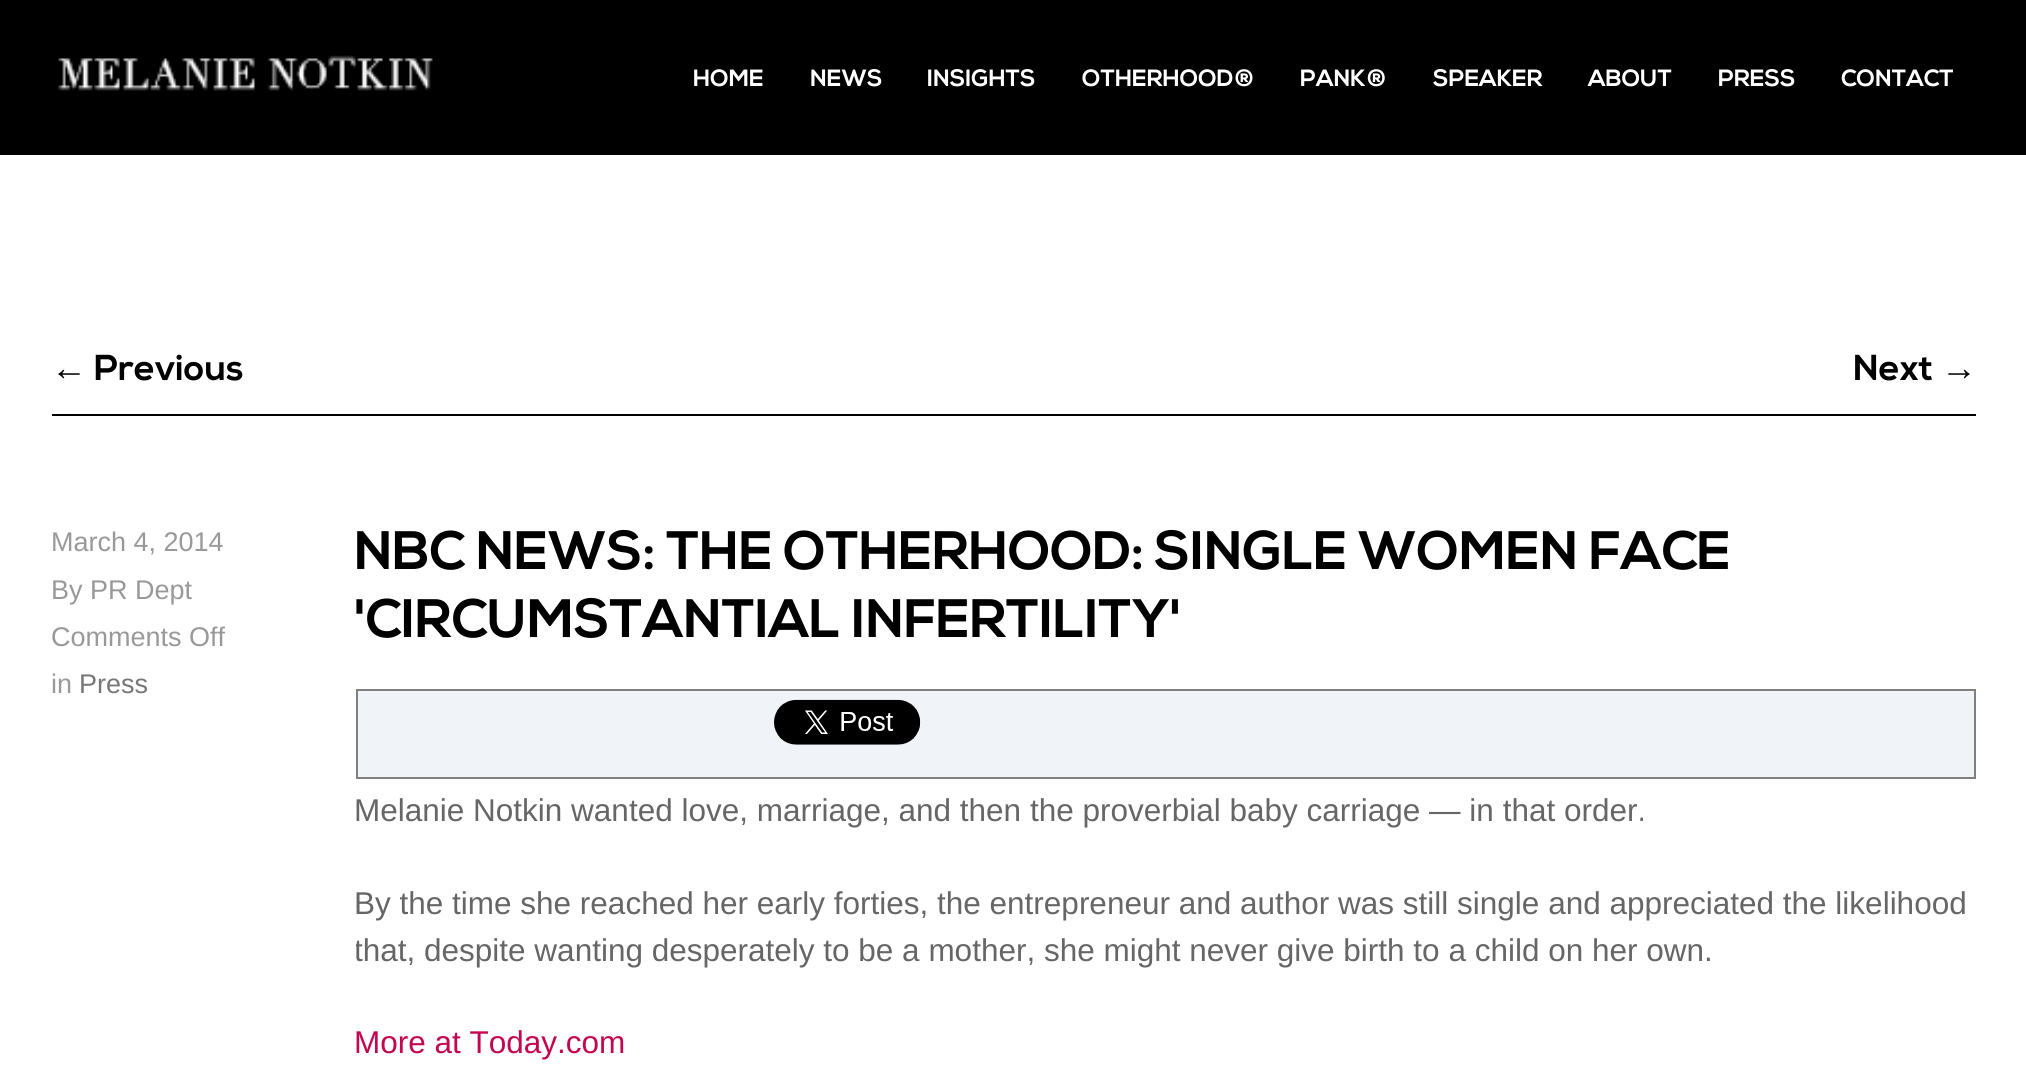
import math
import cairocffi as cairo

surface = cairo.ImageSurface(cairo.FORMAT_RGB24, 2026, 1071)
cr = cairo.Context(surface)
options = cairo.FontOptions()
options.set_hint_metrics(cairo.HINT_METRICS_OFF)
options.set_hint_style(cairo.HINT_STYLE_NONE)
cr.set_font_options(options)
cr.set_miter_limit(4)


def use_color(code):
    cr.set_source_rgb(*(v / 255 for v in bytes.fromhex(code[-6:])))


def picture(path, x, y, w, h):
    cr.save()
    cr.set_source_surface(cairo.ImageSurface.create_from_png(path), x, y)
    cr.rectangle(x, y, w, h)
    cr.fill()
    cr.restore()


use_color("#ffffff")
cr.paint()
use_color("#000000")
cr.rectangle(0, 0, 2026, 155)
cr.fill()
picture("img1.png", 58, 55, 375, 36)
cr.select_font_face("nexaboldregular", cairo.FONT_SLANT_NORMAL, cairo.FONT_WEIGHT_BOLD)
cr.set_font_size(23.5)
use_color("#ffffff")
cr.move_to(693, 86)
cr.show_text("HOME")
cr.move_to(810, 86)
cr.show_text("NEWS")
cr.move_to(927, 86)
cr.show_text("INSIGHTS")
cr.move_to(1082, 86)
cr.show_text("OTHERHOOD®")
cr.move_to(1300, 86)
cr.show_text("PANK®")
cr.move_to(1433, 86)
cr.show_text("SPEAKER")
cr.move_to(1588, 86)
cr.show_text("ABOUT")
cr.move_to(1718, 86)
cr.show_text("PRESS")
cr.move_to(1841, 86)
cr.show_text("CONTACT")
use_color("#000000")
cr.rectangle(52, 414, 1924, 2)
cr.fill()
cr.select_font_face("Liberation Sans")
cr.set_font_size(36)
cr.move_to(51, 380)
cr.show_text("←")
cr.select_font_face("nexaboldregular", cairo.FONT_SLANT_NORMAL, cairo.FONT_WEIGHT_BOLD)
cr.move_to(94, 380)
cr.show_text("Previous")
cr.move_to(1853, 380)
cr.show_text("Next")
cr.select_font_face("Liberation Sans")
cr.move_to(1941, 380)
cr.show_text("→")
cr.set_font_size(27)
use_color("#999999")
cr.move_to(51, 551)
cr.show_text("March 4, 2014")
cr.move_to(51, 599)
cr.show_text("By PR Dept")
cr.move_to(51, 646)
cr.show_text("Comments Off")
cr.move_to(51, 693)
cr.show_text("in")
use_color("#777777")
cr.move_to(79, 693)
cr.show_text("Press")
cr.select_font_face("nexaboldregular", cairo.FONT_SLANT_NORMAL, cairo.FONT_WEIGHT_BOLD)
cr.set_font_size(54)
use_color("#000000")
cr.move_to(354, 569)
cr.show_text("NBC NEWS: THE OTHERHOOD: SINGLE WOMEN FACE")
cr.move_to(354, 637)
cr.show_text("'CIRCUMSTANTIAL INFERTILITY'")
use_color("#f0f4f9")
cr.rectangle(357, 690, 1618, 88)
cr.fill_preserve()
use_color("#808080")
cr.stroke()
picture("img2.png", 774, 699, 147, 46)
cr.select_font_face("Liberation Sans")
cr.set_font_size(31.5)
use_color("#666666")
cr.move_to(354, 821)
cr.show_text("Melanie Notkin wanted love, marriage, and then the proverbial baby carriage — in that order.")
cr.move_to(354, 914)
cr.show_text("By the time she reached her early forties, the entrepreneur and author was still single and appreciated the likelihood")
cr.save()
cr.rectangle(356, 689, 1620, 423)
cr.clip()
cr.move_to(354, 961)
cr.show_text("that, despite wanting desperately to be a mother, she might never give birth to a child on her own.")
cr.restore()
use_color("#c30552")
cr.move_to(354, 1053)
cr.show_text("More at Today.com")
surface.write_to_png("result.png")
